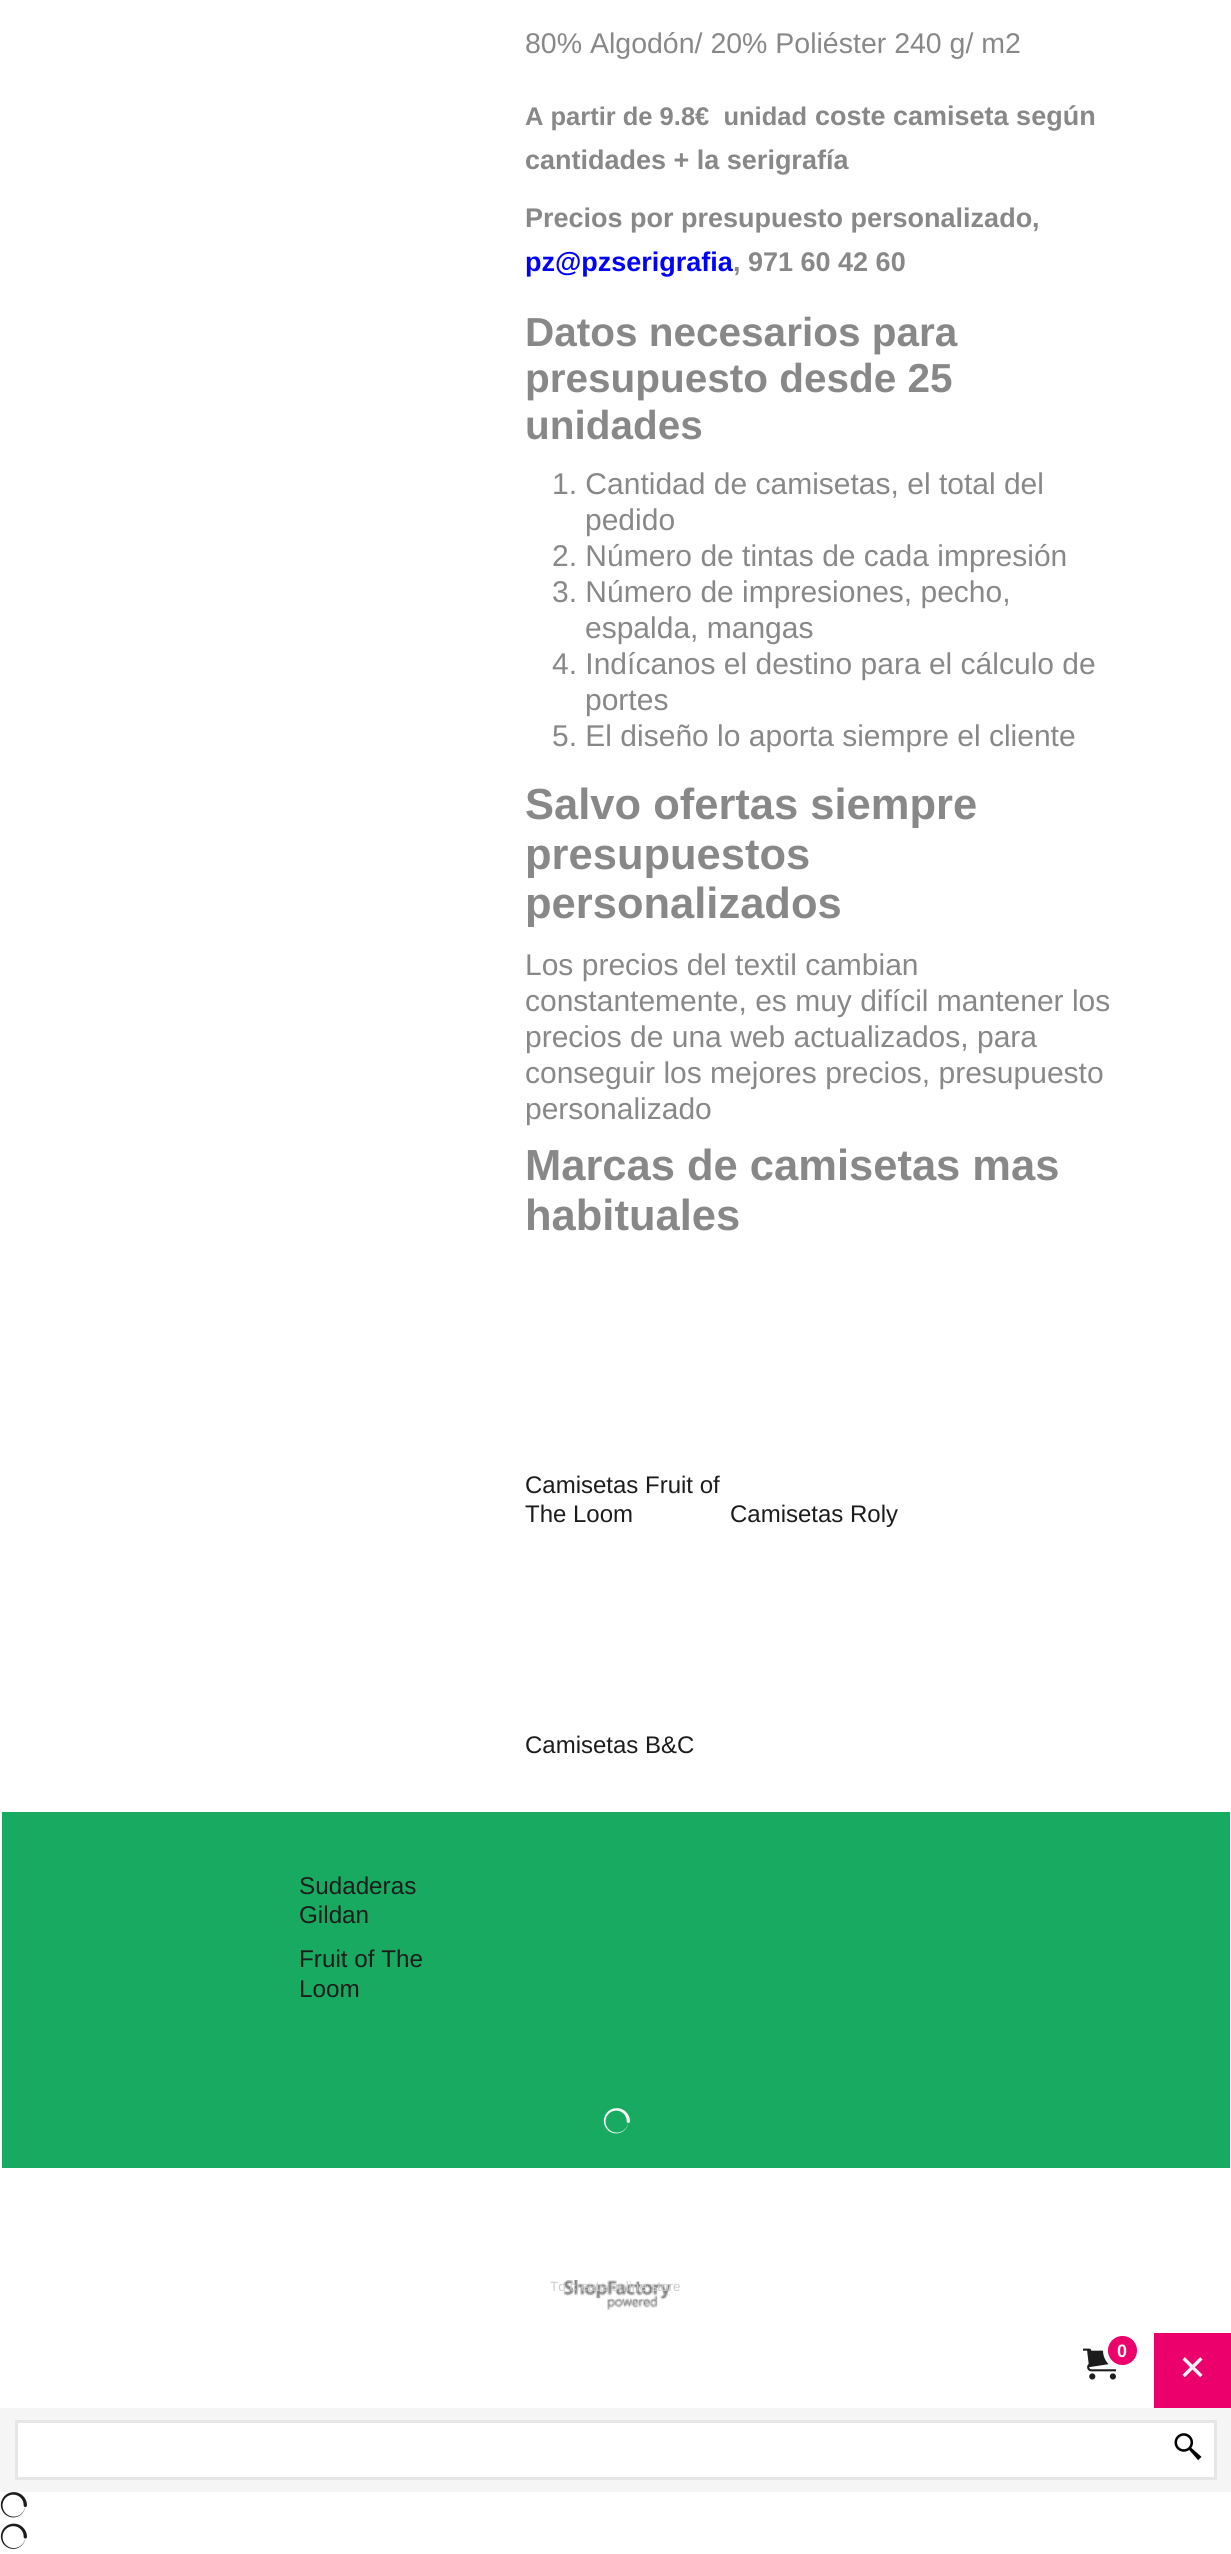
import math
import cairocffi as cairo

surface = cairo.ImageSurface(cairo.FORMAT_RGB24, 1231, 2554)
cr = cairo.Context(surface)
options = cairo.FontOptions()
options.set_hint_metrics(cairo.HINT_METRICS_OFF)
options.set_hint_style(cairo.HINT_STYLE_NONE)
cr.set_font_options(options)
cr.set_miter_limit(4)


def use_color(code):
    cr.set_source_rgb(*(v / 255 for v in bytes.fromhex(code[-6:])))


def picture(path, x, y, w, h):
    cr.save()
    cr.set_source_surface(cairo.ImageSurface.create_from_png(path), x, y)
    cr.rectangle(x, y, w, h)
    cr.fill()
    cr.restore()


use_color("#ffffff")
cr.paint()
cr.select_font_face("Liberation Sans")
cr.set_font_size(28.5)
use_color("#888888")
cr.move_to(525, 53)
cr.show_text("80% Algodón/ 20% Poliéster 240 g/ m2")
cr.select_font_face("Liberation Sans", cairo.FONT_SLANT_NORMAL, cairo.FONT_WEIGHT_BOLD)
cr.set_font_size(25.5)
cr.move_to(525, 125)
cr.show_text("A partir de 9.8€  unidad")
cr.set_font_size(27)
cr.move_to(815, 125)
cr.show_text("coste camiseta según")
cr.move_to(525, 169)
cr.show_text("cantidades + la serigrafía")
cr.move_to(525, 227)
cr.show_text("Precios por presupuesto personalizado,")
use_color("#0000ff")
cr.move_to(525, 271)
cr.show_text("pz@pzserigrafia")
use_color("#888888")
cr.move_to(733, 271)
cr.show_text(", 971 60 42 60")
cr.set_font_size(40.5)
cr.move_to(525, 346)
cr.show_text("Datos necesarios para")
cr.move_to(525, 392)
cr.show_text("presupuesto desde 25")
cr.move_to(525, 439)
cr.show_text("unidades")
cr.select_font_face("Liberation Sans")
cr.set_font_size(30)
cr.move_to(552, 494)
cr.show_text("1. Cantidad de camisetas, el total del")
cr.move_to(585, 530)
cr.show_text("pedido")
cr.move_to(552, 566)
cr.show_text("2. Número de tintas de cada impresión")
cr.move_to(552, 602)
cr.show_text("3. Número de impresiones, pecho,")
cr.move_to(585, 638)
cr.show_text("espalda, mangas")
cr.move_to(552, 674)
cr.show_text("4. Indícanos el destino para el cálculo de")
cr.move_to(585, 710)
cr.show_text("portes")
cr.move_to(552, 746)
cr.show_text("5. El diseño lo aporta siempre el cliente")
cr.select_font_face("Liberation Sans", cairo.FONT_SLANT_NORMAL, cairo.FONT_WEIGHT_BOLD)
cr.set_font_size(43.5)
cr.move_to(525, 819)
cr.show_text("Salvo ofertas siempre")
cr.move_to(525, 869)
cr.show_text("presupuestos")
cr.move_to(525, 918)
cr.show_text("personalizados")
cr.select_font_face("Liberation Sans")
cr.set_font_size(30)
cr.move_to(525, 975)
cr.show_text("Los precios del textil cambian")
cr.move_to(525, 1011)
cr.show_text("constantemente, es muy difícil mantener los")
cr.move_to(525, 1047)
cr.show_text("precios de una web actualizados, para")
cr.move_to(525, 1083)
cr.show_text("conseguir los mejores precios, presupuesto")
cr.move_to(525, 1119)
cr.show_text("personalizado")
cr.select_font_face("Liberation Sans", cairo.FONT_SLANT_NORMAL, cairo.FONT_WEIGHT_BOLD)
cr.set_font_size(43.5)
cr.move_to(525, 1180)
cr.show_text("Marcas de camisetas mas")
cr.move_to(525, 1230)
cr.show_text("habituales")
cr.select_font_face("Liberation Sans")
cr.set_font_size(24)
use_color("#1c1c1c")
cr.move_to(525, 1493)
cr.show_text("Camisetas Fruit of")
cr.move_to(525, 1522)
cr.show_text("The Loom")
cr.move_to(730, 1522)
cr.show_text("Camisetas Roly")
cr.move_to(525, 1753)
cr.show_text("Camisetas B&C")
use_color("#18aa60")
cr.rectangle(2, 1812, 1228, 356)
cr.fill()
cr.set_font_size(24.25)
use_color("#1c1c1c")
cr.move_to(299, 1894)
cr.show_text("Sudaderas")
cr.move_to(299, 1923)
cr.show_text("Gildan")
cr.move_to(299, 1967)
cr.show_text("Fruit of The")
cr.move_to(299, 1997)
cr.show_text("Loom")
picture("img1.png", 603, 2108, 27, 26)
picture("img2.png", 563, 2280, 108, 30)
cr.set_font_size(13.5)
use_color("#cccccc")
cr.move_to(550, 2291)
cr.show_text("To create online store")
picture("img3.png", 1083, 2348, 33, 32)
use_color("#ec006c")
cr.arc(1122.5, 2350.5, 17, 0, 2 * math.pi)
cr.fill_preserve()
use_color("#ffffff")
cr.set_line_width(5)
cr.stroke()
cr.select_font_face("Liberation Sans", cairo.FONT_SLANT_NORMAL, cairo.FONT_WEIGHT_BOLD)
cr.set_font_size(18)
use_color("#f7f7f7")
cr.move_to(1117, 2357)
cr.show_text("0")
use_color("#ec006c")
cr.rectangle(1154, 2333, 77, 75)
cr.fill()
picture("img4.png", 1182, 2357, 21, 21)
use_color("#f5f5f6")
cr.rectangle(0, 2408, 1231, 84)
cr.fill()
use_color("#ffffff")
cr.rectangle(16.5, 2421.5, 1199, 57)
cr.fill_preserve()
use_color("#e6e6e6")
cr.set_line_width(3)
cr.stroke()
picture("img5.png", 1174, 2433, 28, 28)
picture("img6.png", 0, 2492, 27, 26)
picture("img7.png", 0, 2523, 27, 26)
surface.write_to_png("result.png")
